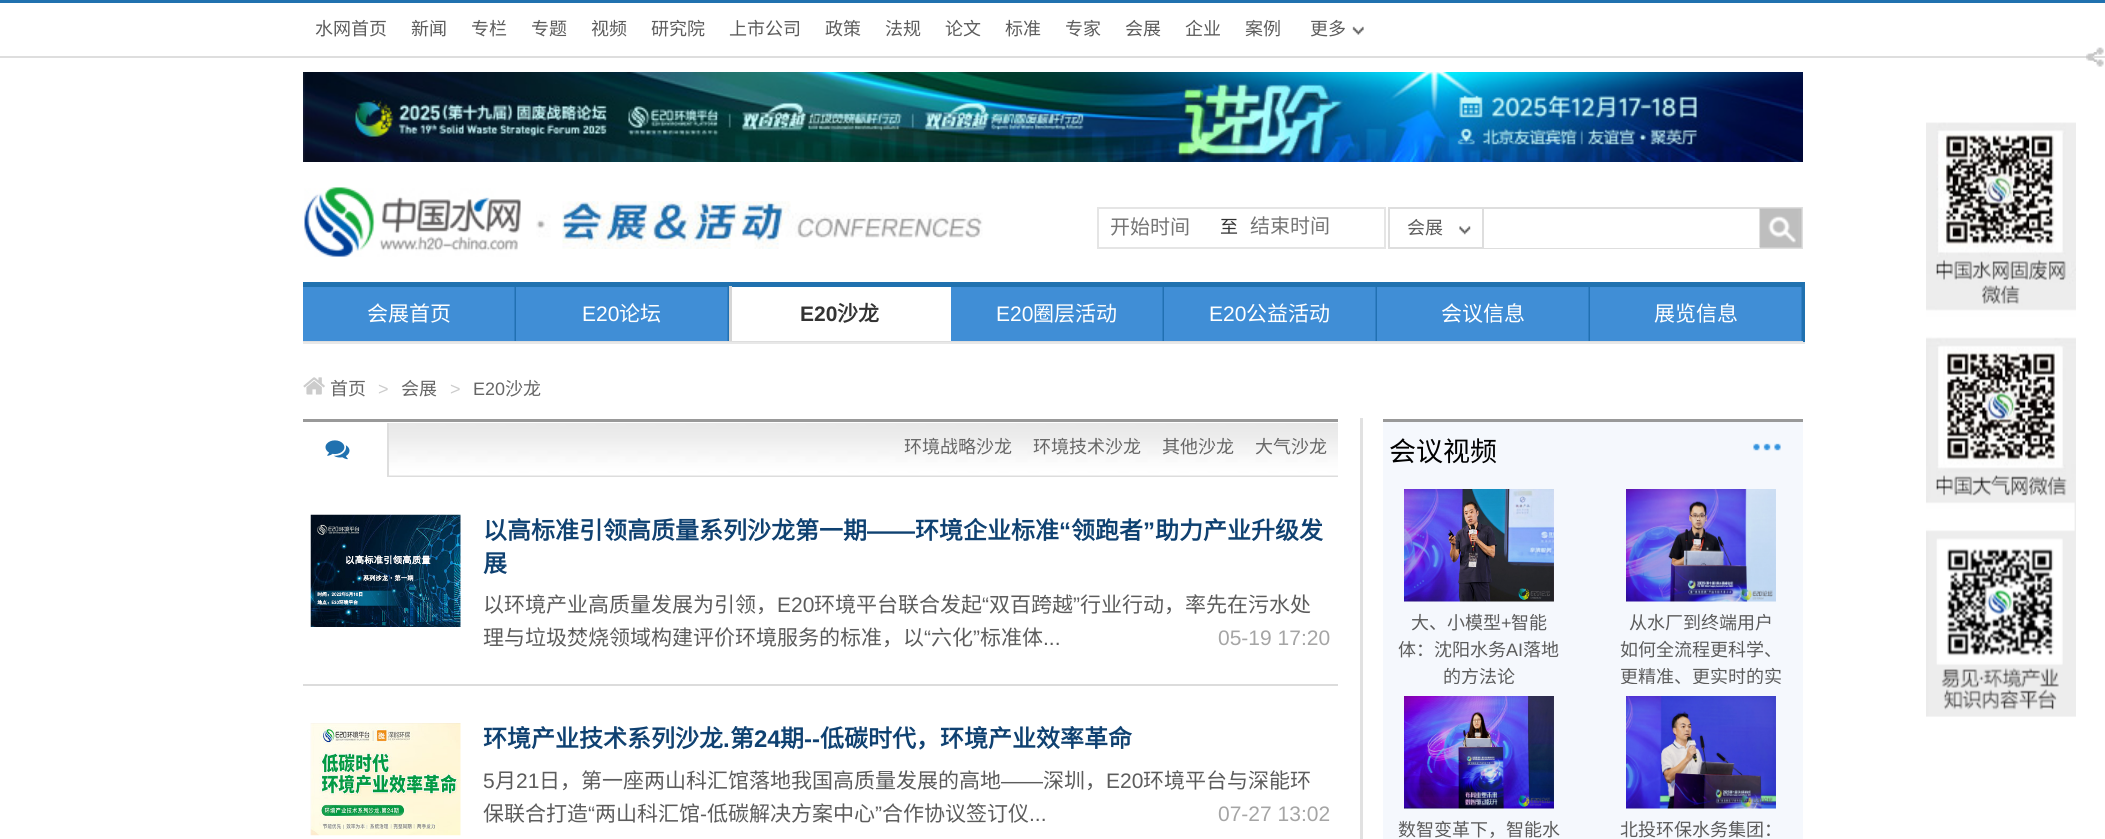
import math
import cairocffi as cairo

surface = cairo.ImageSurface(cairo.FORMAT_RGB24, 2105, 839)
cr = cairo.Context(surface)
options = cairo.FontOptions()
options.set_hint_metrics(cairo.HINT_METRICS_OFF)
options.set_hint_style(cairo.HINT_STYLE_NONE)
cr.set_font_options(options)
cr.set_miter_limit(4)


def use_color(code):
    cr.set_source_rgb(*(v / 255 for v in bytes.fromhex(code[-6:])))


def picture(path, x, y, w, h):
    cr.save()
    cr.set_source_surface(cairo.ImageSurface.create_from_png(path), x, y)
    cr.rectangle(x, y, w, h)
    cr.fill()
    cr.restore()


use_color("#ffffff")
cr.paint()
use_color("#2071af")
cr.rectangle(0, 0, 2105, 3)
cr.fill()
use_color("#dedede")
cr.rectangle(0, 56, 2105, 2)
cr.fill()
cr.select_font_face("Noto Sans CJK SC")
cr.set_font_size(18)
use_color("#5c5c5c")
cr.move_to(315, 35)
cr.show_text("水网首页")
cr.move_to(411, 35)
cr.show_text("新闻")
cr.move_to(471, 35)
cr.show_text("专栏")
cr.move_to(531, 35)
cr.show_text("专题")
cr.move_to(591, 35)
cr.show_text("视频")
cr.move_to(651, 35)
cr.show_text("研究院")
cr.move_to(729, 35)
cr.show_text("上市公司")
cr.move_to(825, 35)
cr.show_text("政策")
cr.move_to(885, 35)
cr.show_text("法规")
cr.move_to(945, 35)
cr.show_text("论文")
cr.move_to(1005, 35)
cr.show_text("标准")
cr.move_to(1065, 35)
cr.show_text("专家")
cr.move_to(1125, 35)
cr.show_text("会展")
cr.move_to(1185, 35)
cr.show_text("企业")
cr.move_to(1245, 35)
cr.show_text("案例")
picture("img1.png", 1352, 26, 12, 9)
cr.move_to(1310, 35)
cr.show_text("更多")
picture("img2.png", 303, 72, 1500, 90)
picture("img3.png", 304, 187, 217, 70)
picture("img4.png", 536, 201, 447, 48)
cr.rectangle(1389, 208, 413, 40)
use_color("#dedede")
cr.stroke()
cr.rectangle(1098, 208, 287, 40)
use_color("#e5e5e5")
cr.stroke()
cr.set_font_size(20)
use_color("#757575")
cr.move_to(1110, 234)
cr.show_text("开始时间")
cr.set_font_size(18)
use_color("#333333")
cr.move_to(1220, 233)
cr.show_text("至")
cr.set_font_size(20)
use_color("#757575")
cr.move_to(1250, 233)
cr.show_text("结束时间")
picture("img5.png", 1459, 226, 12, 9)
use_color("#dedede")
cr.rectangle(1482, 209, 2, 39)
cr.fill()
cr.set_font_size(18)
use_color("#5c5c5c")
cr.move_to(1407, 234)
cr.show_text("会展")
use_color("#ffffff")
cr.rectangle(1484, 247, 276, 1)
cr.fill()
picture("img6.png", 1759, 208, 43, 40)
use_color("#2071af")
cr.rectangle(303, 282, 1502, 5)
cr.fill()
cr.rectangle(1803, 282, 2, 62)
cr.fill()
use_color("#e8e8e8")
cr.rectangle(303, 342, 1502, 2)
cr.fill()
use_color("#408ed6")
cr.rectangle(303, 287, 212, 54)
cr.fill()
picture("img7.png", 514, 287, 2, 54)
use_color("#dedede")
cr.rectangle(303, 341, 1500, 1)
cr.fill()
cr.set_font_size(21)
use_color("#ffffff")
cr.move_to(367, 321)
cr.show_text("会展首页")
use_color("#408ed6")
cr.rectangle(516, 287, 212, 54)
cr.fill()
picture("img7.png", 727, 287, 2, 54)
cr.select_font_face("Liberation Sans")
use_color("#ffffff")
cr.move_to(582, 321)
cr.show_text("E20")
cr.select_font_face("Noto Sans CJK SC")
cr.move_to(619, 321)
cr.show_text("论坛")
use_color("#d6d6d6")
cr.rectangle(729, 286, 3, 55)
cr.fill()
cr.select_font_face("Liberation Sans", cairo.FONT_SLANT_NORMAL, cairo.FONT_WEIGHT_BOLD)
use_color("#333333")
cr.move_to(800, 321)
cr.show_text("E20")
cr.select_font_face("Noto Sans CJK SC", cairo.FONT_SLANT_NORMAL, cairo.FONT_WEIGHT_BOLD)
cr.move_to(837, 321)
cr.show_text("沙龙")
use_color("#408ed6")
cr.rectangle(951, 287, 212, 54)
cr.fill()
picture("img7.png", 1162, 287, 2, 54)
cr.select_font_face("Liberation Sans")
use_color("#ffffff")
cr.move_to(996, 321)
cr.show_text("E20")
cr.select_font_face("Noto Sans CJK SC")
cr.move_to(1033, 321)
cr.show_text("圈层活动")
use_color("#408ed6")
cr.rectangle(1164, 287, 212, 54)
cr.fill()
picture("img7.png", 1375, 287, 2, 54)
cr.select_font_face("Liberation Sans")
use_color("#ffffff")
cr.move_to(1209, 321)
cr.show_text("E20")
cr.select_font_face("Noto Sans CJK SC")
cr.move_to(1246, 321)
cr.show_text("公益活动")
use_color("#408ed6")
cr.rectangle(1377, 287, 212, 54)
cr.fill()
picture("img7.png", 1588, 287, 2, 54)
use_color("#ffffff")
cr.move_to(1441, 321)
cr.show_text("会议信息")
use_color("#408ed6")
cr.rectangle(1590, 287, 212, 54)
cr.fill()
picture("img7.png", 1801, 287, 2, 54)
use_color("#ffffff")
cr.move_to(1654, 321)
cr.show_text("展览信息")
picture("img8.png", 303, 377, 22, 18)
cr.set_font_size(18)
use_color("#666666")
cr.move_to(330, 395)
cr.show_text("首页")
cr.select_font_face("Liberation Sans")
use_color("#cccccc")
cr.move_to(378, 395)
cr.show_text(">")
cr.select_font_face("Noto Sans CJK SC")
use_color("#666666")
cr.move_to(401, 395)
cr.show_text("会展")
cr.select_font_face("Liberation Sans")
use_color("#cccccc")
cr.move_to(450, 395)
cr.show_text(">")
use_color("#666666")
cr.move_to(473, 395)
cr.show_text("E20")
cr.select_font_face("Noto Sans CJK SC")
cr.move_to(505, 395)
cr.show_text("沙龙")
picture("img9.png", 1926, 122, 150, 595)
use_color("#e1e1e1")
cr.rectangle(1360, 418, 3, 421)
cr.fill()
use_color("#999999")
cr.rectangle(303, 419, 1035, 3)
cr.fill()
picture("img10.png", 389, 423, 949, 54)
use_color("#dedede")
cr.rectangle(387, 423, 2, 54)
cr.fill()
picture("img11.png", 325, 440, 25, 20)
use_color("#666666")
cr.move_to(904, 453)
cr.show_text("环境战略沙龙")
cr.move_to(1033, 453)
cr.show_text("环境技术沙龙")
cr.move_to(1162, 453)
cr.show_text("其他沙龙")
cr.move_to(1255, 453)
cr.show_text("大气沙龙")
picture("img16.png", 2086, 47, 18, 20)
picture("img18.png", 2086, 47, 18, 20)
picture("img12.png", 2086, 47, 18, 20)
picture("img13.png", 2088, 47, 16, 20)
picture("img14.png", 2090, 51, 7, 12)
use_color("#dcdcdc")
cr.rectangle(303, 684, 1035, 2)
cr.fill()
picture("img15.png", 310, 514, 151, 113)
cr.select_font_face("Noto Sans CJK SC", cairo.FONT_SLANT_NORMAL, cairo.FONT_WEIGHT_BOLD)
cr.set_font_size(24)
use_color("#0f4171")
cr.move_to(483, 539)
cr.show_text("以高标准引领高质量系列沙龙第一期")
cr.move_to(915, 539)
cr.show_text("环境企业标准")
cr.select_font_face("Liberation Sans", cairo.FONT_SLANT_NORMAL, cairo.FONT_WEIGHT_BOLD)
cr.move_to(1059, 539)
cr.show_text("“")
cr.select_font_face("Noto Sans CJK SC", cairo.FONT_SLANT_NORMAL, cairo.FONT_WEIGHT_BOLD)
cr.move_to(1071, 539)
cr.show_text("领跑者")
cr.select_font_face("Liberation Sans", cairo.FONT_SLANT_NORMAL, cairo.FONT_WEIGHT_BOLD)
cr.move_to(1143, 539)
cr.show_text("”")
cr.select_font_face("Noto Sans CJK SC", cairo.FONT_SLANT_NORMAL, cairo.FONT_WEIGHT_BOLD)
cr.move_to(1155, 539)
cr.show_text("助力产业升级发")
cr.select_font_face("Liberation Sans", cairo.FONT_SLANT_NORMAL, cairo.FONT_WEIGHT_BOLD)
cr.move_to(867, 539)
cr.show_text("——")
cr.select_font_face("Noto Sans CJK SC", cairo.FONT_SLANT_NORMAL, cairo.FONT_WEIGHT_BOLD)
cr.move_to(483, 572)
cr.show_text("展")
cr.select_font_face("Noto Sans CJK SC")
cr.set_font_size(21)
use_color("#5c5c5c")
cr.move_to(483, 612)
cr.show_text("以环境产业高质量发展为引领，")
cr.select_font_face("Liberation Sans")
cr.move_to(777, 612)
cr.show_text("E20")
cr.select_font_face("Noto Sans CJK SC")
cr.move_to(814, 612)
cr.show_text("环境平台联合发起")
cr.select_font_face("Liberation Sans")
cr.move_to(982, 612)
cr.show_text("“")
cr.select_font_face("Noto Sans CJK SC")
cr.move_to(989, 612)
cr.show_text("双百跨越")
cr.select_font_face("Liberation Sans")
cr.move_to(1073, 612)
cr.show_text("”")
cr.select_font_face("Noto Sans CJK SC")
cr.move_to(1080, 612)
cr.show_text("行业行动，率先在污水处")
cr.move_to(483, 645)
cr.show_text("理与垃圾焚烧领域构建评价环境服务的标准，以")
cr.select_font_face("Liberation Sans")
cr.move_to(924, 645)
cr.show_text("“")
cr.select_font_face("Noto Sans CJK SC")
cr.move_to(931, 645)
cr.show_text("六化")
cr.select_font_face("Liberation Sans")
cr.move_to(973, 645)
cr.show_text("”")
cr.select_font_face("Noto Sans CJK SC")
cr.move_to(980, 645)
cr.show_text("标准体")
cr.select_font_face("Liberation Sans")
cr.move_to(1043, 645)
cr.show_text("...")
use_color("#a5a5a5")
cr.move_to(1218, 645)
cr.show_text("05-19 17:20")
picture("img17.png", 310, 723, 151, 113)
cr.select_font_face("Noto Sans CJK SC", cairo.FONT_SLANT_NORMAL, cairo.FONT_WEIGHT_BOLD)
cr.set_font_size(24)
use_color("#0f4171")
cr.move_to(483, 747)
cr.show_text("环境产业技术系列沙龙")
cr.move_to(730, 747)
cr.show_text("第")
cr.select_font_face("Liberation Sans", cairo.FONT_SLANT_NORMAL, cairo.FONT_WEIGHT_BOLD)
cr.move_to(754, 747)
cr.show_text("24")
cr.select_font_face("Noto Sans CJK SC", cairo.FONT_SLANT_NORMAL, cairo.FONT_WEIGHT_BOLD)
cr.move_to(780, 747)
cr.show_text("期")
cr.select_font_face("Liberation Sans", cairo.FONT_SLANT_NORMAL, cairo.FONT_WEIGHT_BOLD)
cr.move_to(804, 747)
cr.show_text("--")
cr.select_font_face("Noto Sans CJK SC", cairo.FONT_SLANT_NORMAL, cairo.FONT_WEIGHT_BOLD)
cr.move_to(820, 747)
cr.show_text("低碳时代，环境产业效率革命")
cr.select_font_face("Liberation Sans", cairo.FONT_SLANT_NORMAL, cairo.FONT_WEIGHT_BOLD)
cr.move_to(723, 747)
cr.show_text(".")
cr.select_font_face("Liberation Sans")
cr.set_font_size(21)
use_color("#5c5c5c")
cr.move_to(483, 788)
cr.show_text("5")
cr.select_font_face("Noto Sans CJK SC")
cr.move_to(495, 788)
cr.show_text("月")
cr.select_font_face("Liberation Sans")
cr.move_to(516, 788)
cr.show_text("21")
cr.select_font_face("Noto Sans CJK SC")
cr.move_to(539, 788)
cr.show_text("日，第一座两山科汇馆落地我国高质量发展的高地")
cr.select_font_face("Liberation Sans")
cr.move_to(1001, 788)
cr.show_text("——")
cr.select_font_face("Noto Sans CJK SC")
cr.move_to(1043, 788)
cr.show_text("深圳，")
cr.select_font_face("Liberation Sans")
cr.move_to(1106, 788)
cr.show_text("E20")
cr.select_font_face("Noto Sans CJK SC")
cr.move_to(1143, 788)
cr.show_text("环境平台与深能环")
cr.move_to(483, 821)
cr.show_text("保联合打造")
cr.select_font_face("Liberation Sans")
cr.move_to(588, 821)
cr.show_text("“")
cr.select_font_face("Noto Sans CJK SC")
cr.move_to(595, 821)
cr.show_text("两山科汇馆")
cr.select_font_face("Liberation Sans")
cr.move_to(700, 821)
cr.show_text("-")
cr.select_font_face("Noto Sans CJK SC")
cr.move_to(707, 821)
cr.show_text("低碳解决方案中心")
cr.select_font_face("Liberation Sans")
cr.move_to(875, 821)
cr.show_text("”")
cr.select_font_face("Noto Sans CJK SC")
cr.move_to(882, 821)
cr.show_text("合作协议签订仪")
cr.select_font_face("Liberation Sans")
use_color("#a5a5a5")
cr.move_to(1218, 821)
cr.show_text("07-27 13:02")
use_color("#5c5c5c")
cr.move_to(1029, 821)
cr.show_text("...")
use_color("#f5f8fd")
cr.rectangle(1383, 422, 420, 417)
cr.fill()
use_color("#999999")
cr.rectangle(1383, 419, 420, 3)
cr.fill()
cr.select_font_face("Noto Sans CJK SC")
cr.set_font_size(27)
use_color("#000000")
cr.move_to(1389, 461)
cr.show_text("会议视频")
picture("img19.png", 1753, 443, 28, 8)
picture("img20.png", 1404, 489, 150, 113)
cr.set_font_size(18)
use_color("#5c5c5c")
cr.move_to(1411, 629)
cr.show_text("大、小模型")
cr.select_font_face("Liberation Sans")
cr.move_to(1501, 629)
cr.show_text("+")
cr.select_font_face("Noto Sans CJK SC")
cr.move_to(1511, 629)
cr.show_text("智能")
cr.move_to(1398, 656)
cr.show_text("体：沈阳水务")
cr.select_font_face("Liberation Sans")
cr.move_to(1506, 656)
cr.show_text("AI")
cr.select_font_face("Noto Sans CJK SC")
cr.move_to(1523, 656)
cr.show_text("落地")
cr.save()
cr.rectangle(1398, 609, 162, 75)
cr.clip()
cr.move_to(1443, 683)
cr.show_text("的方法论")
cr.restore()
picture("img21.png", 1626, 489, 150, 113)
cr.move_to(1629, 629)
cr.show_text("从水厂到终端用户")
cr.move_to(1620, 656)
cr.show_text("如何全流程更科学、")
cr.save()
cr.rectangle(1620, 609, 162, 75)
cr.clip()
cr.move_to(1620, 683)
cr.show_text("更精准、更实时的实")
cr.restore()
picture("img22.png", 1404, 696, 150, 113)
cr.move_to(1398, 836)
cr.show_text("数智变革下，智能水")
picture("img23.png", 1626, 696, 150, 113)
cr.move_to(1620, 836)
cr.show_text("北投环保水务集团：")
surface.write_to_png("result.png")
